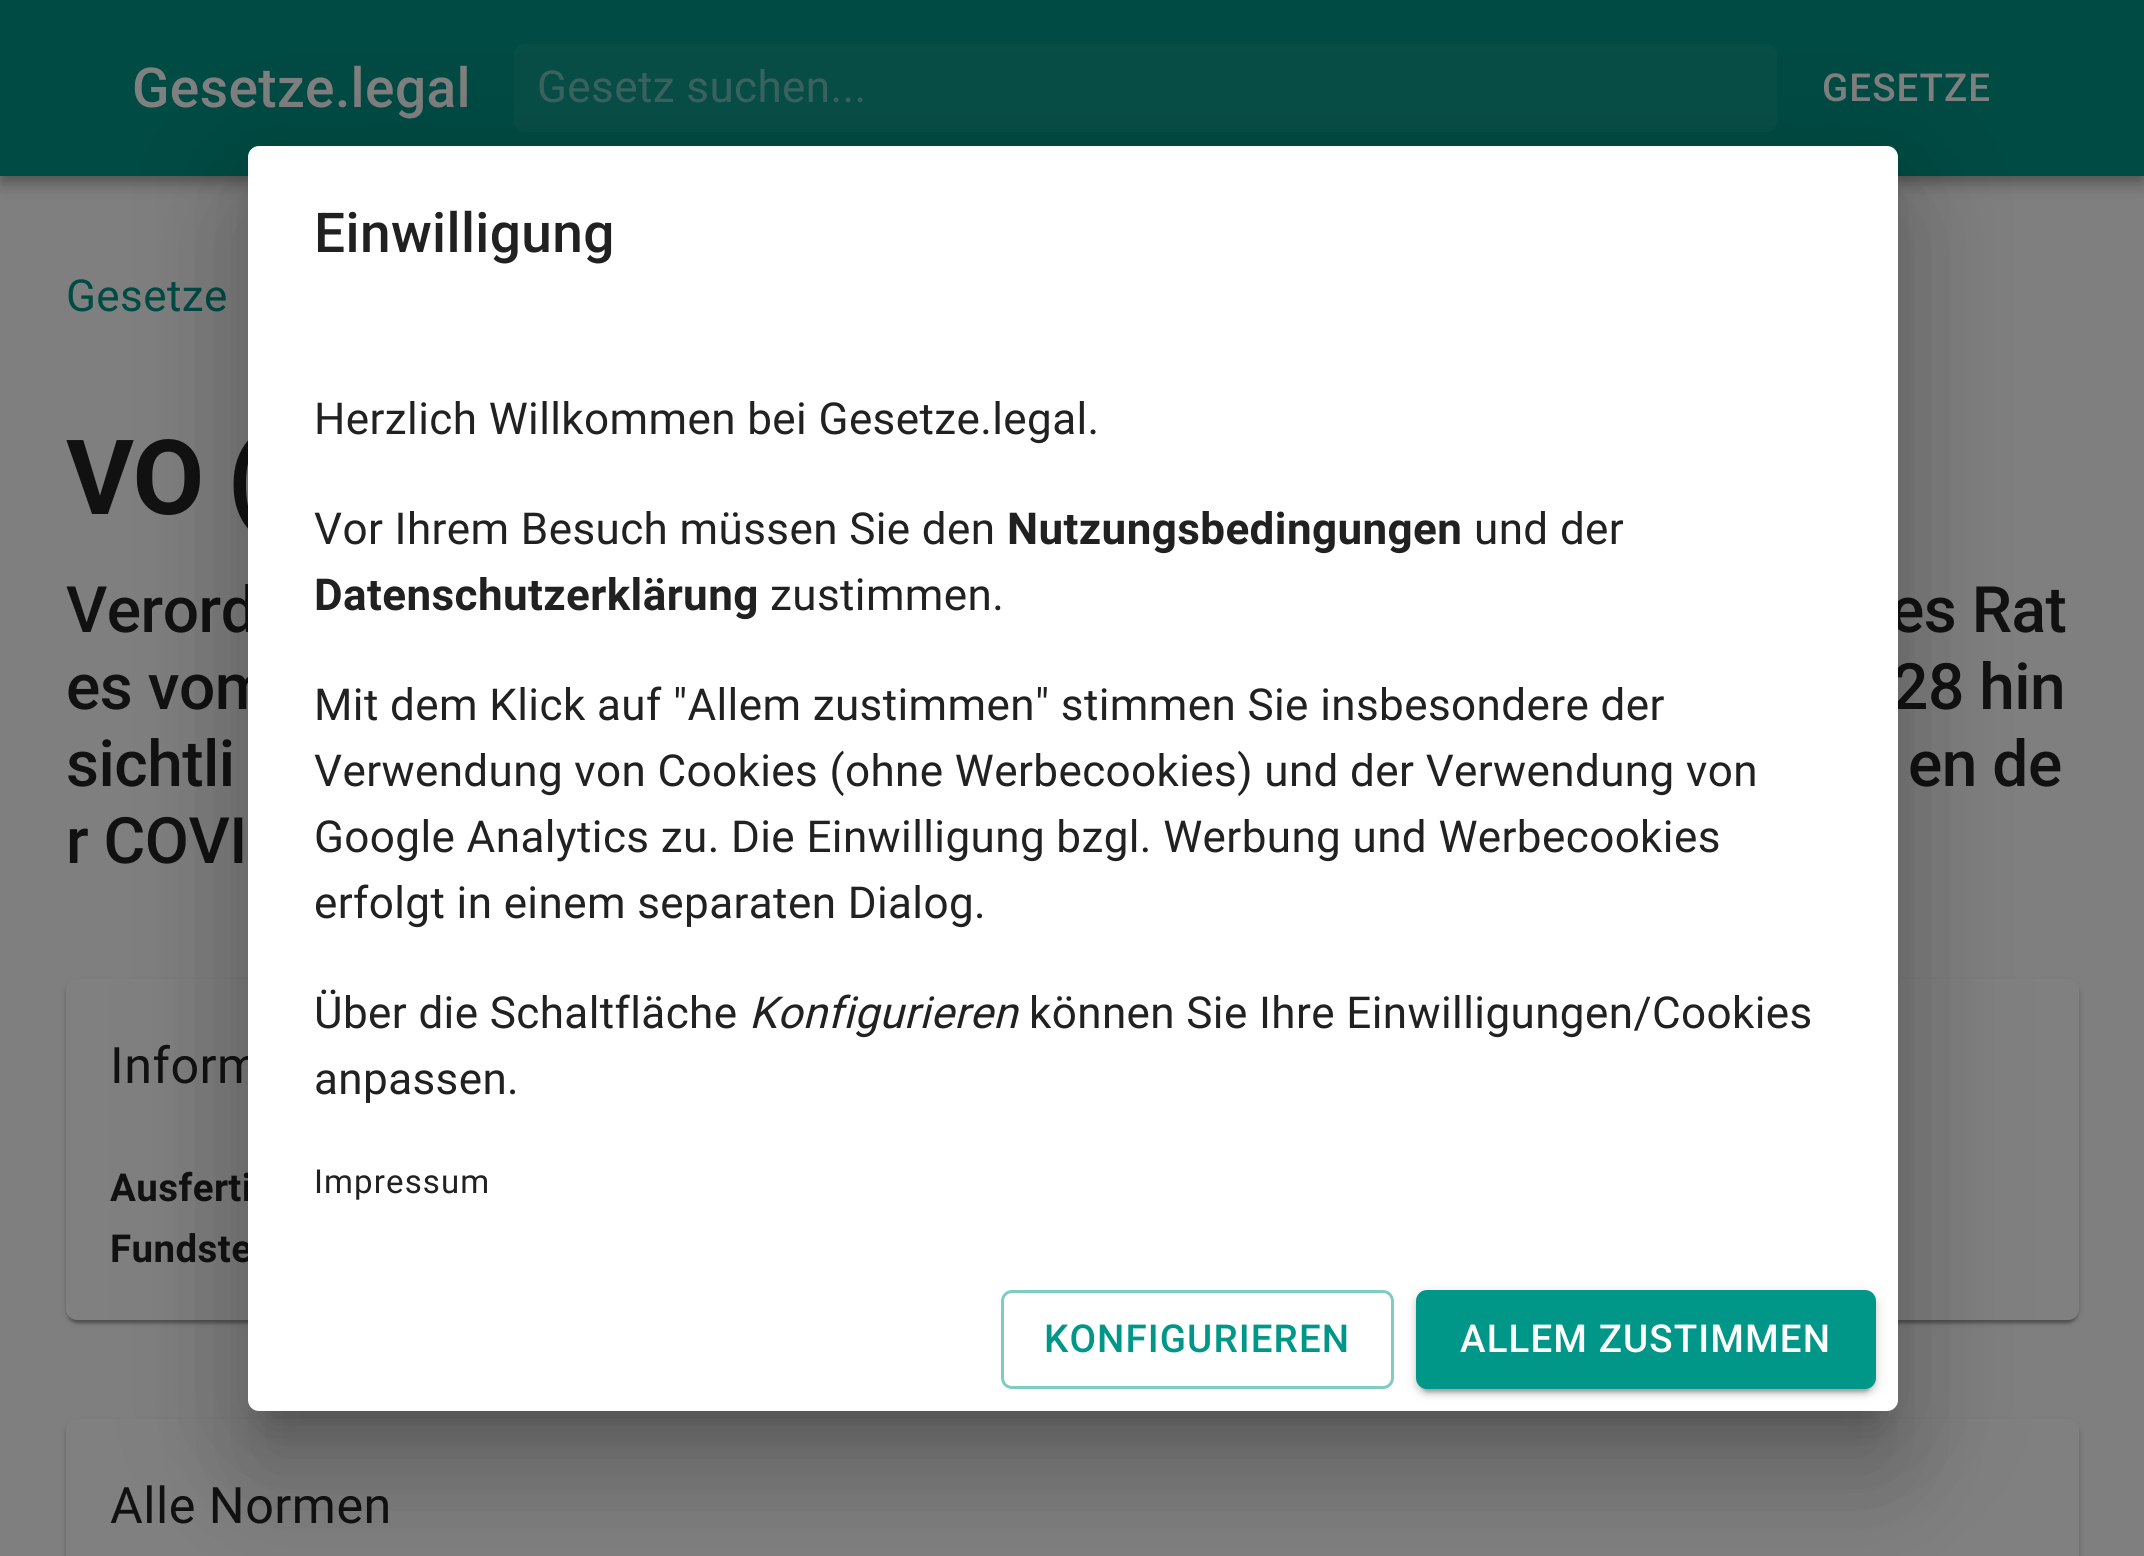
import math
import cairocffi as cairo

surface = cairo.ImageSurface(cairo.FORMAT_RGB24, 2144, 1556)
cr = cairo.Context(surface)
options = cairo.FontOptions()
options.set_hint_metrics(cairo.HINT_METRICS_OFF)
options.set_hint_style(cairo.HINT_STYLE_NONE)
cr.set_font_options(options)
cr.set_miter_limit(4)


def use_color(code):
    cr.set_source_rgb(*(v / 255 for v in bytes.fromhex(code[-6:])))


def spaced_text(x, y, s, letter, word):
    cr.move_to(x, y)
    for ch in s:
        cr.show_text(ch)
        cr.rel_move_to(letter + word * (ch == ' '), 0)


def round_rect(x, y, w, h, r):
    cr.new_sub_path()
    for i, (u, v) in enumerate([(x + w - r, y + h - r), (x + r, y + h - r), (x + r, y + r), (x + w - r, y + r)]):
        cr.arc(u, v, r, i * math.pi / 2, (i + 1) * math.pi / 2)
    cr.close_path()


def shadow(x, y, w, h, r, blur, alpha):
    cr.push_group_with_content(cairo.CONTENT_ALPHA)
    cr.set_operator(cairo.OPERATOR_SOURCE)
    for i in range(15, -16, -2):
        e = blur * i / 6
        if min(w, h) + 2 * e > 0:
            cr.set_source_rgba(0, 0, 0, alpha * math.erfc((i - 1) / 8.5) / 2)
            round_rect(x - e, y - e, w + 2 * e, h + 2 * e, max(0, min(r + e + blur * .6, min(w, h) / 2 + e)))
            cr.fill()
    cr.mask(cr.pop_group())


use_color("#7f7f7f")
cr.paint()
use_color("#000000")
shadow(0, 3, 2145, 176, 0, 14, 0.12)
shadow(0, 11, 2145, 176, 0, 7, 0.14)
shadow(3, 8, 2139, 171, 0, 5.5, 0.2)
use_color("#004b44")
cr.rectangle(0, 0, 2144, 176)
cr.fill()
cr.select_font_face("Roboto Medium")
cr.set_font_size(55)
use_color("#808080")
spaced_text(132, 107, "Gesetze.legal", 0.4, 0)
use_color("#074e47")
round_rect(514, 44, 1263, 88, 11)
cr.fill()
cr.select_font_face("Roboto")
cr.set_font_size(44)
use_color("#3a635f")
spaced_text(537, 102, "Gesetz suchen...", 0.4, 0)
cr.select_font_face("Roboto Medium")
cr.set_font_size(38.5)
use_color("#808080")
spaced_text(1822, 101, "GESETZE", 1.1, 0)
cr.select_font_face("Roboto")
cr.set_font_size(44)
use_color("#004b44")
spaced_text(66, 311, "Gesetze", 0.4, 0)
cr.select_font_face("Roboto", cairo.FONT_SLANT_NORMAL, cairo.FONT_WEIGHT_BOLD)
cr.set_font_size(104)
use_color("#111111")
spaced_text(66, 514, "VO (", -1.5, 0)
cr.select_font_face("Roboto Medium")
cr.set_font_size(64)
spaced_text(66, 632, "Verord", -0.5, 0)
spaced_text(1890, 632, "es Rat", -0.5, 0)
spaced_text(66, 709, "es vom", -0.5, 0)
spaced_text(1892, 709, "28 hin", -0.5, 0)
spaced_text(66, 786, "sichtli", -0.5, 0)
spaced_text(1908, 786, "en de", -0.5, 0)
spaced_text(66, 863, "r COVI", -0.5, 0)
use_color("#000000")
shadow(66, 982, 2013, 341, 11, 4, 0.12)
shadow(66, 982, 2013, 341, 11, 1.5, 0.14)
shadow(69, 987, 2007, 336, 8, 1.5, 0.2)
use_color("#808080")
round_rect(66, 979, 2013, 341, 11)
cr.fill()
cr.select_font_face("Roboto")
cr.set_font_size(50.25)
use_color("#111111")
spaced_text(110, 1083, "Inform", 0.5, 0)
cr.select_font_face("Roboto", cairo.FONT_SLANT_NORMAL, cairo.FONT_WEIGHT_BOLD)
cr.set_font_size(38.5)
spaced_text(110, 1201, "Ausferti", 0.4, 0)
spaced_text(110, 1262, "Fundste", 0.4, 0)
use_color("#000000")
shadow(66, 1422, 2013, 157, 11, 4, 0.12)
shadow(66, 1422, 2013, 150, 11, 1.5, 0.14)
use_color("#808080")
round_rect(66, 1419, 2013, 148, 11)
cr.fill()
cr.select_font_face("Roboto")
cr.set_font_size(50.25)
use_color("#111111")
spaced_text(110, 1523, "Alle Normen", 0.5, 0)
use_color("#000000")
shadow(226, 149, 1694, 1309, 33, 63, 0.12)
shadow(239, 204, 1667, 1281, 19, 52, 0.14)
shadow(267, 195, 1611, 1227, 0, 20.5, 0.2)
use_color("#ffffff")
round_rect(248, 146, 1650, 1265, 11)
cr.fill()
cr.select_font_face("Roboto Medium")
cr.set_font_size(55)
use_color("#212121")
spaced_text(314, 252, "Einwilligung", 0.4, 0)
cr.select_font_face("Roboto")
cr.set_font_size(44)
spaced_text(314, 434, "Herzlich Willkommen bei Gesetze.legal.", 0.4, 0)
spaced_text(314, 544, "Vor Ihrem Besuch müssen Sie den", 0.4, 0)
cr.select_font_face("Roboto", cairo.FONT_SLANT_NORMAL, cairo.FONT_WEIGHT_BOLD)
spaced_text(1007, 544, "Nutzungsbedingungen", 0.4, 0)
cr.select_font_face("Roboto")
spaced_text(1474, 544, "und der", 0.4, 0)
cr.select_font_face("Roboto", cairo.FONT_SLANT_NORMAL, cairo.FONT_WEIGHT_BOLD)
spaced_text(314, 610, "Datenschutzerklärung", 0.4, 0)
cr.select_font_face("Roboto")
spaced_text(770, 610, "zustimmen.", 0.4, 0)
spaced_text(314, 720, "Mit dem Klick auf \"Allem zustimmen\" stimmen Sie insbesondere der", 0.4, 0)
spaced_text(314, 786, "Verwendung von Cookies (ohne Werbecookies) und der Verwendung von", 0.4, 0)
spaced_text(314, 852, "Google Analytics zu. Die Einwilligung bzgl. Werbung und Werbecookies", 0.4, 0)
spaced_text(314, 918, "erfolgt in einem separaten Dialog.", 0.4, 0)
spaced_text(314, 1028, "Über die Schaltfläche", 0.4, 0)
cr.select_font_face("Roboto", cairo.FONT_SLANT_ITALIC)
spaced_text(749, 1028, "Konfigurieren", 0.4, 0)
cr.select_font_face("Roboto")
spaced_text(1029, 1028, "können Sie Ihre Einwilligungen/Cookies", 0.4, 0)
spaced_text(314, 1094, "anpassen.", 0.4, 0)
cr.set_font_size(33)
spaced_text(314, 1193, "Impressum", 1.1, 0)
round_rect(1002.5, 1291.5, 390, 96, 9.5)
use_color("#80cbc4")
cr.set_line_width(3)
cr.stroke()
cr.select_font_face("Roboto Medium")
cr.set_font_size(38.5)
use_color("#009688")
spaced_text(1044, 1352, "KONFIGURIEREN", 1.1, 0)
use_color("#000000")
shadow(1416, 1293, 460, 99, 11, 7, 0.12)
shadow(1416, 1295, 460, 99, 11, 3, 0.14)
shadow(1422, 1304, 448, 88, 6, 1.5, 0.2)
use_color("#009688")
round_rect(1416, 1290, 460, 99, 11)
cr.fill()
use_color("#ffffff")
spaced_text(1460, 1352, "ALLEM ZUSTIMMEN", 1.1, 0)
surface.write_to_png("result.png")
